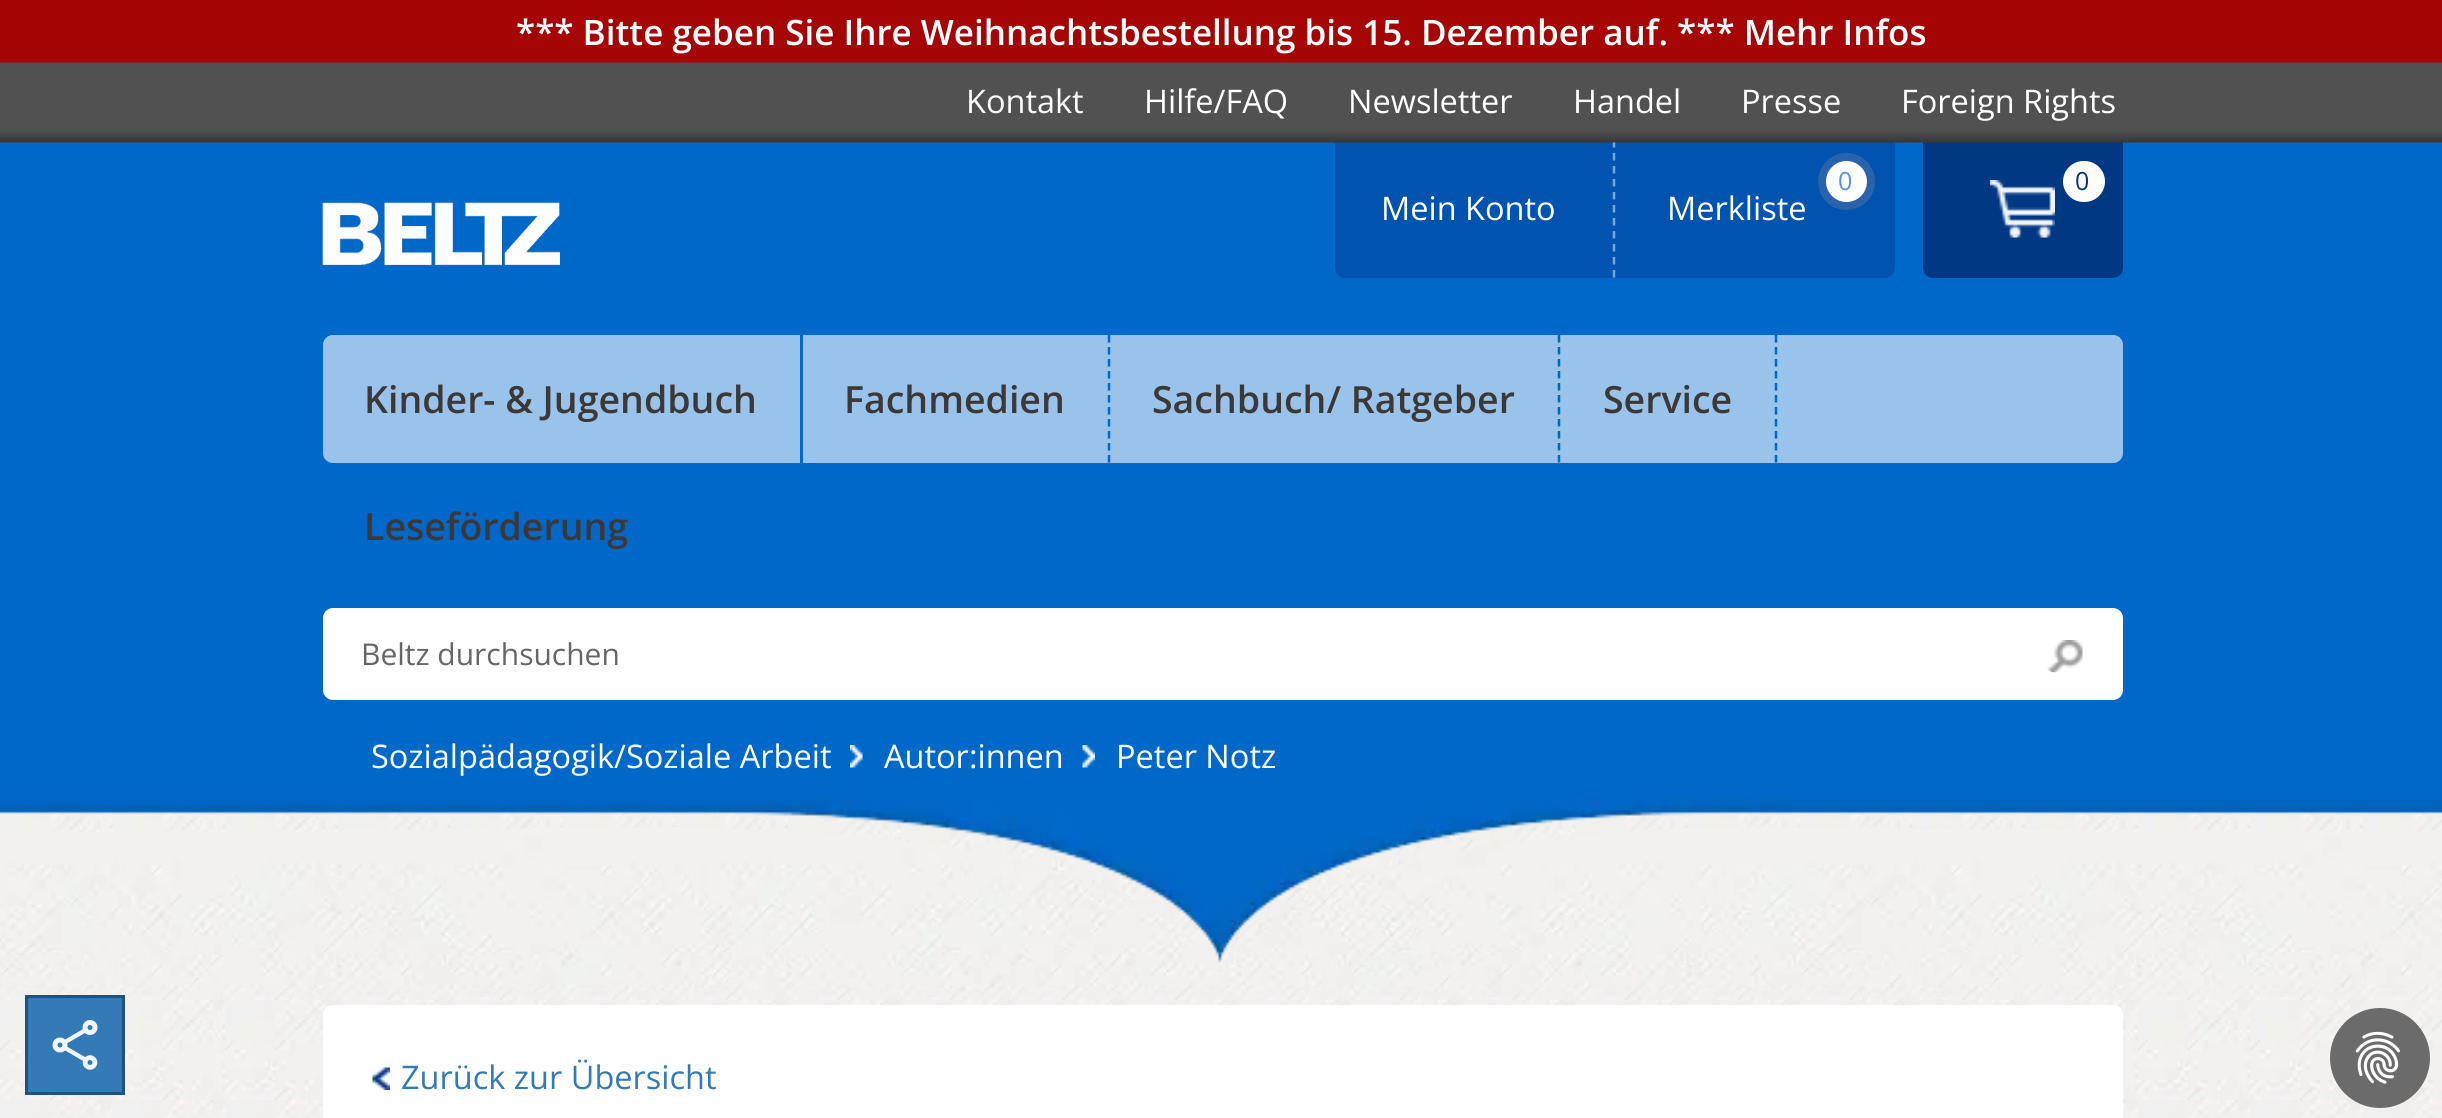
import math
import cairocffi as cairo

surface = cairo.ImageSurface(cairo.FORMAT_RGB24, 2442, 1118)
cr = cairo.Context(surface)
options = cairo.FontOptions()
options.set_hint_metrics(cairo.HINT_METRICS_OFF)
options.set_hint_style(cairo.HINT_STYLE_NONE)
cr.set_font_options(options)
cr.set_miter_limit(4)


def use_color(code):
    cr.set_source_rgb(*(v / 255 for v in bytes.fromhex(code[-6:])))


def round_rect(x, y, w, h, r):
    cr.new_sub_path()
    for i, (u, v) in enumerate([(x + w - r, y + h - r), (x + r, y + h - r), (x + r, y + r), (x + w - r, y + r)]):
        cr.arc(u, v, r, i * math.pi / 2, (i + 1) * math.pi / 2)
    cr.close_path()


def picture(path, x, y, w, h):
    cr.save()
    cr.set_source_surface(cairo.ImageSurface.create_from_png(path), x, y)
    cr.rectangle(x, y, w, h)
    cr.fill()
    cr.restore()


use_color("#ffffff")
cr.paint()
picture("img1.png", 0, 811, 2442, 307)
use_color("#a60505")
cr.rectangle(0, 0, 2442, 63)
cr.fill()
cr.select_font_face("Open Sans SemiBold")
cr.set_font_size(35)
use_color("#ffffff")
cr.move_to(516, 45)
cr.show_text("*** Bitte geben Sie Ihre Weihnachtsbestellung bis 15. Dezember auf. *** Mehr Infos")
use_color("#0068c9")
cr.rectangle(0, 142, 2442, 653)
cr.fill()
use_color("#0053af")
cr.new_path()
cr.move_to(1335, 140)
cr.line_to(1895, 140)
cr.line_to(1895, 268)
cr.curve_to(1895, 273.5, 1890.5, 278, 1885, 278)
cr.line_to(1345, 278)
cr.curve_to(1339.5, 278, 1335, 273.5, 1335, 268)
cr.close_path()
cr.fill()
cr.new_path()
cr.move_to(1614, 140)
cr.line_to(1614, 277.5)
use_color("#7aa6d5")
cr.set_line_width(2.5)
cr.set_dash([7.5, 5.5])
cr.stroke()
use_color("#003883")
cr.new_path()
cr.move_to(1923, 140)
cr.line_to(2123, 140)
cr.line_to(2123, 268)
cr.curve_to(2123, 273.5, 2118.5, 278, 2113, 278)
cr.line_to(1933, 278)
cr.curve_to(1927.5, 278, 1923, 273.5, 1923, 268)
cr.close_path()
cr.fill()
picture("img2.png", 0, 62, 2442, 81)
cr.select_font_face("Open Sans")
cr.set_font_size(32.5)
use_color("#ffffff")
cr.move_to(966, 113)
cr.show_text("Kontakt")
cr.move_to(1144, 113)
cr.show_text("Hilfe/FAQ")
cr.move_to(1348, 113)
cr.show_text("Newsletter")
cr.move_to(1573, 113)
cr.show_text("Handel")
cr.move_to(1741, 113)
cr.show_text("Presse")
cr.move_to(1901, 113)
cr.show_text("Foreign Rights")
picture("img3.png", 0, 795, 2442, 170)
cr.move_to(1381, 220)
cr.show_text("Mein Konto")
cr.new_path()
cr.arc(1846.5, 181.5, 24.5, 0, 2 * math.pi)
cr.fill_preserve()
use_color("#2b62ac")
cr.set_line_width(8)
cr.set_dash([])
cr.stroke()
cr.set_font_size(25)
use_color("#5592e3")
cr.move_to(1838, 190)
cr.show_text("0")
cr.set_font_size(32.5)
use_color("#ffffff")
cr.move_to(1667, 220)
cr.show_text("Merkliste")
picture("img4.png", 1990, 180, 65, 58)
round_rect(2059, 157, 50, 49, 24.5)
cr.fill_preserve()
use_color("#003883")
cr.stroke()
cr.set_font_size(25)
cr.move_to(2075, 190)
cr.show_text("0")
picture("img5.png", 322, 202, 238, 63)
use_color("#5ea0dd")
round_rect(323, 335, 1800, 128, 10)
cr.fill()
cr.set_source_rgba(1, 1, 1, 0.37)
round_rect(323, 335, 1800, 128, 10)
cr.fill()
use_color("#0068c9")
cr.rectangle(800, 335, 3, 128)
cr.fill()
cr.select_font_face("Open Sans SemiBold")
cr.set_font_size(37.5)
use_color("#3c3838")
cr.move_to(364, 413)
cr.show_text("Kinder- & Jugendbuch")
cr.new_path()
cr.move_to(1109, 335)
cr.line_to(1109, 462.5)
use_color("#0068c9")
cr.set_line_width(2.5)
cr.set_dash([7.5, 4.5])
cr.stroke()
use_color("#3c3838")
cr.move_to(844, 413)
cr.show_text("Fachmedien")
cr.new_path()
cr.move_to(1559, 335)
cr.line_to(1559, 462.5)
use_color("#0068c9")
cr.stroke()
use_color("#3c3838")
cr.move_to(1152, 413)
cr.show_text("Sachbuch/ Ratgeber")
cr.new_path()
cr.move_to(1776, 335)
cr.line_to(1776, 462.5)
use_color("#0068c9")
cr.stroke()
use_color("#3c3838")
cr.move_to(1603, 413)
cr.show_text("Service")
cr.move_to(364, 540)
cr.show_text("Leseförderung")
use_color("#ffffff")
round_rect(323, 608, 1800, 92, 10)
cr.fill()
cr.select_font_face("Open Sans")
cr.set_font_size(30)
use_color("#666666")
cr.move_to(361, 665)
cr.show_text("Beltz durchsuchen")
picture("img6.png", 2047, 640, 36, 33)
cr.set_font_size(32.5)
use_color("#ffffff")
cr.move_to(371, 768)
cr.show_text("Sozialpädagogik/Soziale Arbeit")
picture("img7.png", 850, 745, 13, 23)
cr.move_to(884, 768)
cr.show_text("Autor:innen")
picture("img8.png", 1082, 745, 13, 23)
cr.move_to(1116, 768)
cr.show_text("Peter Notz")
picture("img9.png", 0, 826, 2442, 171)
use_color("#337ab7")
cr.rectangle(26.5, 996.5, 97, 97)
cr.fill_preserve()
use_color("#22527b")
cr.set_line_width(3)
cr.set_dash([])
cr.stroke()
picture("img10.png", 52, 1020, 46, 50)
use_color("#ffffff")
round_rect(323, 1005, 1800, 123, 10)
cr.fill()
picture("img11.png", 372, 1067, 18, 23)
use_color("#337ab7")
cr.move_to(401, 1089)
cr.show_text("Zurück zur Übersicht")
cr.set_source_rgba(0.408, 0.408, 0.408, 0.98)
cr.new_path()
cr.arc(2380, 1058, 50, 0, 2 * math.pi)
cr.fill()
picture("img12.png", 2355, 1031, 45, 53)
surface.write_to_png("result.png")
